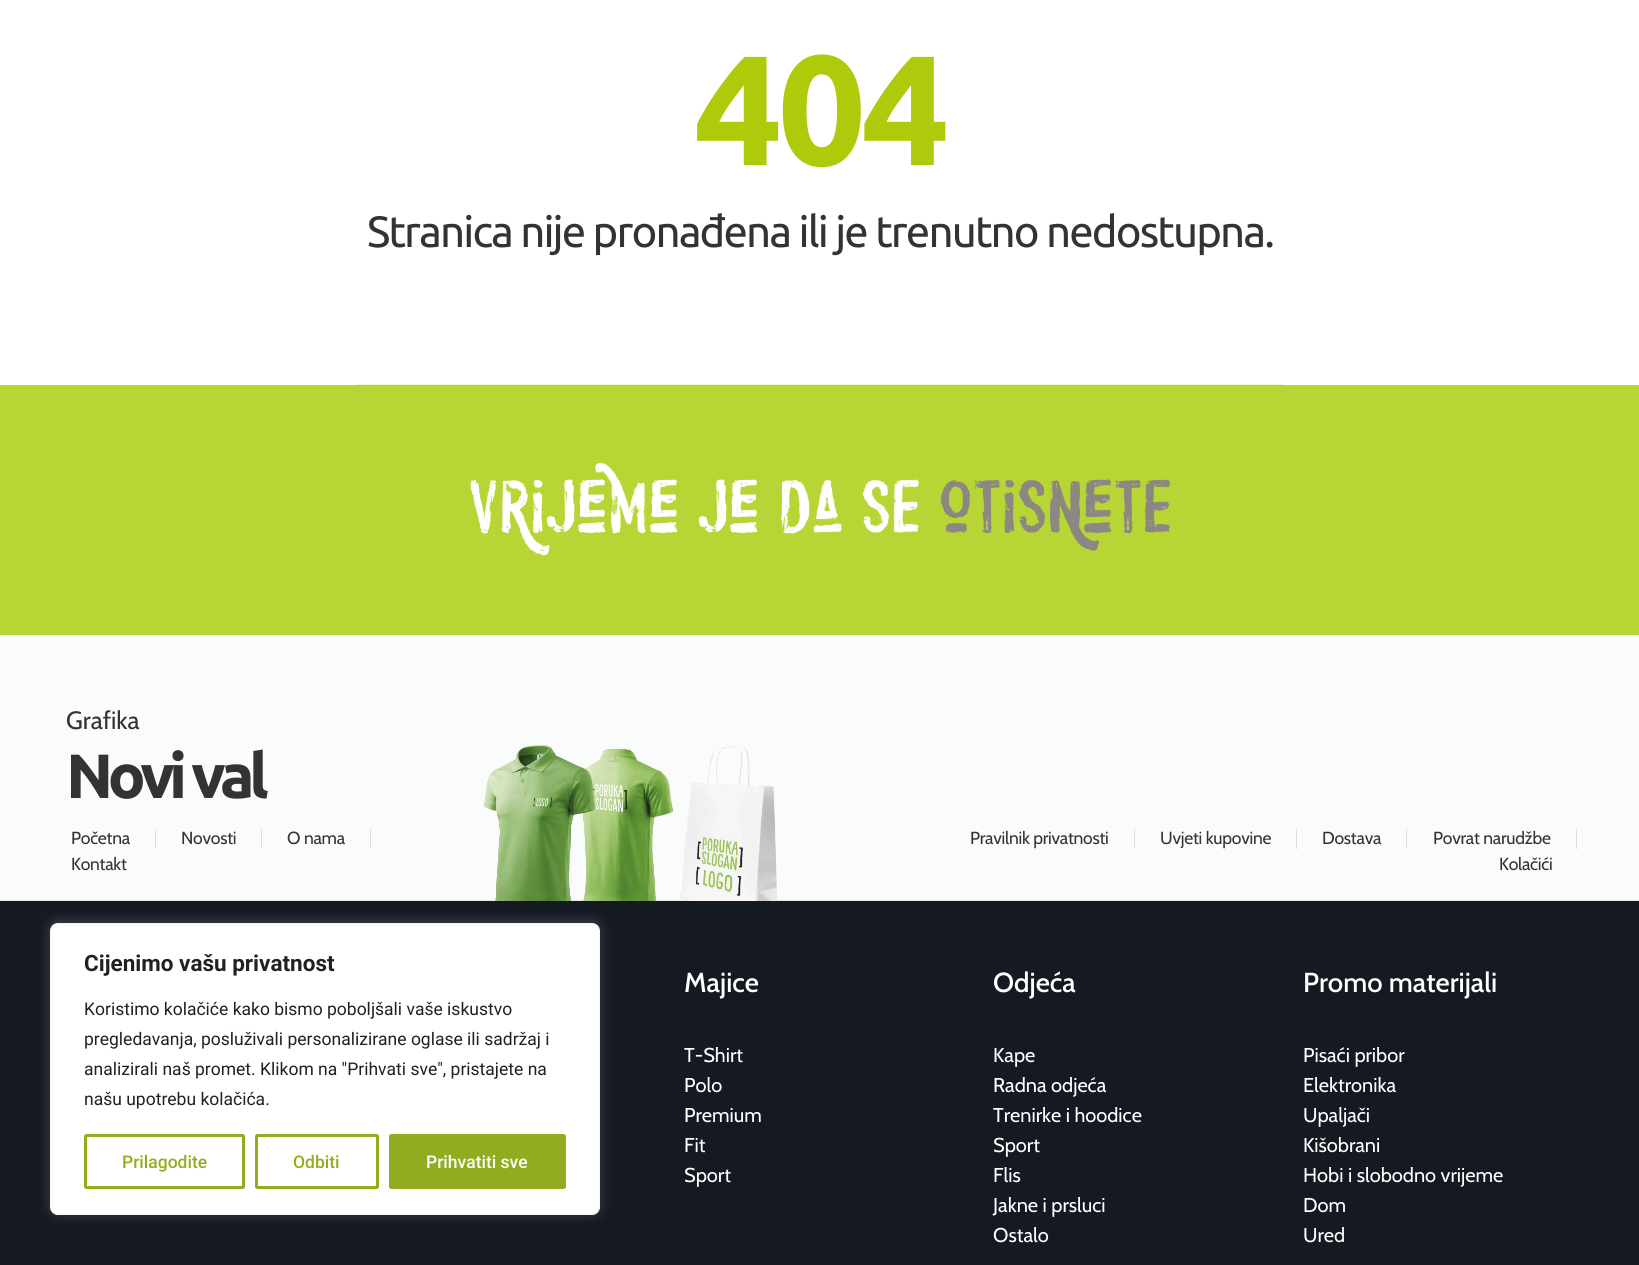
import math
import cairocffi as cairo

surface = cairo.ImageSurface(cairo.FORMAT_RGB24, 1639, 1265)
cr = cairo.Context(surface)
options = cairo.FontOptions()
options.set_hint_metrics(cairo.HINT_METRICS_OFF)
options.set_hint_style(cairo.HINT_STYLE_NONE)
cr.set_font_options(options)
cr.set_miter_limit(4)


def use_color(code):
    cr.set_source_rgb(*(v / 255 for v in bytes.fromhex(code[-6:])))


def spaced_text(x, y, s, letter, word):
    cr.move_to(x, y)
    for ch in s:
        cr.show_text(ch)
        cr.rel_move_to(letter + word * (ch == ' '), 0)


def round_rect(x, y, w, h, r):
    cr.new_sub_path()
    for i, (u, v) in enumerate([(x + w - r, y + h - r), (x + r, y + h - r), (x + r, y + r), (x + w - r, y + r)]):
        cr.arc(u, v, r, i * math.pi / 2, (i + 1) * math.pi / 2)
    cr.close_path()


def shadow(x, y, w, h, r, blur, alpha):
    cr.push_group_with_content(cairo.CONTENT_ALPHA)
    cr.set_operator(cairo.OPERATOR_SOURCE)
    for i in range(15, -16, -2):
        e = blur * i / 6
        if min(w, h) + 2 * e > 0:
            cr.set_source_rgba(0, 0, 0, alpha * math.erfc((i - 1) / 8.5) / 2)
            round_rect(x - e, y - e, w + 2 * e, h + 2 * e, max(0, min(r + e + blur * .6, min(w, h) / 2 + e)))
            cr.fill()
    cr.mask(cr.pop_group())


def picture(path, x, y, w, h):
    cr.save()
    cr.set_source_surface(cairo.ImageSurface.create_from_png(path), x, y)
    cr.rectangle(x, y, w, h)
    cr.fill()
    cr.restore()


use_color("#ffffff")
cr.paint()
cr.select_font_face("Ubuntu", cairo.FONT_SLANT_NORMAL, cairo.FONT_WEIGHT_BOLD)
cr.set_font_size(156)
use_color("#afca0b")
spaced_text(694, 165, "404", -5, 0)
cr.select_font_face("Ubuntu")
cr.set_font_size(43.75)
use_color("#333333")
spaced_text(367, 247, "Stranica nije pronađena ili je trenutno nedostupna.", -1.88, 0)
use_color("#b7d635")
cr.rectangle(0, 385, 1639, 250)
cr.fill()
picture("img1.png", 357, 384, 926, 172)
use_color("#fafcfb")
cr.rectangle(0, 635, 1639, 265)
cr.fill()
use_color("#e7e7e7")
cr.rectangle(0, 900, 1639, 1)
cr.fill()
cr.select_font_face("Cabin")
cr.set_font_size(25)
use_color("#333333")
cr.move_to(66, 729)
cr.show_text("Grafika")
cr.select_font_face("Ubuntu", cairo.FONT_SLANT_NORMAL, cairo.FONT_WEIGHT_BOLD)
cr.set_font_size(62.5)
spaced_text(66, 798, "Novi val", -5.5, 0)
cr.select_font_face("Cabin")
cr.set_font_size(17.5)
spaced_text(71, 844, "Početna", -0.25, 0)
use_color("#dddddd")
cr.rectangle(155, 829, 1, 20)
cr.fill()
use_color("#333333")
spaced_text(181, 844, "Novosti", -0.25, 0)
use_color("#dddddd")
cr.rectangle(261, 829, 1, 20)
cr.fill()
use_color("#333333")
spaced_text(287, 844, "O nama", -0.25, 0)
use_color("#dddddd")
cr.rectangle(370, 829, 1, 20)
cr.fill()
use_color("#333333")
spaced_text(71, 870, "Kontakt", -0.25, 0)
picture("img2.png", 483, 745, 191, 156)
picture("img3.png", 679, 745, 98, 156)
spaced_text(970, 844, "Pravilnik privatnosti", -0.25, 0)
use_color("#dddddd")
cr.rectangle(1134, 829, 1, 20)
cr.fill()
use_color("#333333")
spaced_text(1160, 844, "Uvjeti kupovine", -0.25, 0)
use_color("#dddddd")
cr.rectangle(1296, 829, 1, 20)
cr.fill()
use_color("#333333")
spaced_text(1322, 844, "Dostava", -0.25, 0)
use_color("#dddddd")
cr.rectangle(1406, 829, 1, 20)
cr.fill()
use_color("#333333")
spaced_text(1433, 844, "Povrat narudžbe", -0.25, 0)
use_color("#dddddd")
cr.rectangle(1576, 829, 1, 20)
cr.fill()
use_color("#333333")
spaced_text(1499, 870, "Kolačići", -0.25, 0)
use_color("#151922")
cr.rectangle(0, 901, 1639, 364)
cr.fill()
cr.select_font_face("Cabin Medium")
cr.set_font_size(27.5)
use_color("#ffffff")
cr.move_to(684, 992)
cr.show_text("Majice")
cr.select_font_face("Cabin")
cr.set_font_size(20)
cr.move_to(684, 1062)
cr.show_text("T-Shirt")
cr.move_to(684, 1092)
cr.show_text("Polo")
cr.move_to(684, 1122)
cr.show_text("Premium")
cr.move_to(684, 1152)
cr.show_text("Fit")
cr.move_to(684, 1182)
cr.show_text("Sport")
cr.select_font_face("Cabin Medium")
cr.set_font_size(27.5)
cr.move_to(993, 992)
cr.show_text("Odjeća")
cr.select_font_face("Cabin")
cr.set_font_size(20)
cr.move_to(993, 1062)
cr.show_text("Kape")
cr.move_to(993, 1092)
cr.show_text("Radna odjeća")
cr.move_to(993, 1122)
cr.show_text("Trenirke i hoodice")
cr.move_to(993, 1152)
cr.show_text("Sport")
cr.move_to(993, 1182)
cr.show_text("Flis")
cr.move_to(993, 1212)
cr.show_text("Jakne i prsluci")
cr.move_to(993, 1242)
cr.show_text("Ostalo")
cr.select_font_face("Cabin Medium")
cr.set_font_size(27.5)
cr.move_to(1303, 992)
cr.show_text("Promo materijali")
cr.select_font_face("Cabin")
cr.set_font_size(20)
cr.move_to(1303, 1062)
cr.show_text("Pisaći pribor")
cr.move_to(1303, 1092)
cr.show_text("Elektronika")
cr.move_to(1303, 1122)
cr.show_text("Upaljači")
cr.move_to(1303, 1152)
cr.show_text("Kišobrani")
cr.move_to(1303, 1182)
cr.show_text("Hobi i slobodno vrijeme")
cr.move_to(1303, 1212)
cr.show_text("Dom")
cr.move_to(1303, 1242)
cr.show_text("Ured")
use_color("#acabab")
shadow(50, 921, 550, 293, 8, 6, 0.3)
use_color("#ffffff")
round_rect(50.5, 923.5, 549, 291, 7.5)
cr.fill_preserve()
use_color("#f4f4f4")
cr.set_line_width(1)
cr.stroke()
cr.select_font_face("Roboto", cairo.FONT_SLANT_NORMAL, cairo.FONT_WEIGHT_BOLD)
cr.set_font_size(22.5)
use_color("#212121")
cr.move_to(84, 971)
cr.show_text("Cijenimo vašu privatnost")
cr.select_font_face("Roboto")
cr.set_font_size(17.5)
cr.move_to(84, 1015)
cr.show_text("Koristimo kolačiće kako bismo poboljšali vaše iskustvo")
cr.move_to(84, 1045)
cr.show_text("pregledavanja, posluživali personalizirane oglase ili sadržaj i")
cr.move_to(84, 1075)
cr.show_text("analizirali naš promet. Klikom na \"Prihvati sve\", pristajete na")
cr.move_to(84, 1105)
cr.show_text("našu upotrebu kolačića.")
round_rect(85.5, 1135.5, 158, 52, 1)
use_color("#91ad1f")
cr.set_line_width(3)
cr.stroke()
cr.select_font_face("Roboto Medium")
cr.move_to(122, 1168)
cr.show_text("Prilagodite")
round_rect(256.5, 1135.5, 121, 52, 1)
cr.stroke()
cr.move_to(293, 1168)
cr.show_text("Odbiti")
round_rect(390.5, 1135.5, 174, 52, 1)
cr.fill_preserve()
cr.stroke()
use_color("#ffffff")
cr.move_to(426, 1168)
cr.show_text("Prihvatiti sve")
surface.write_to_png("result.png")
